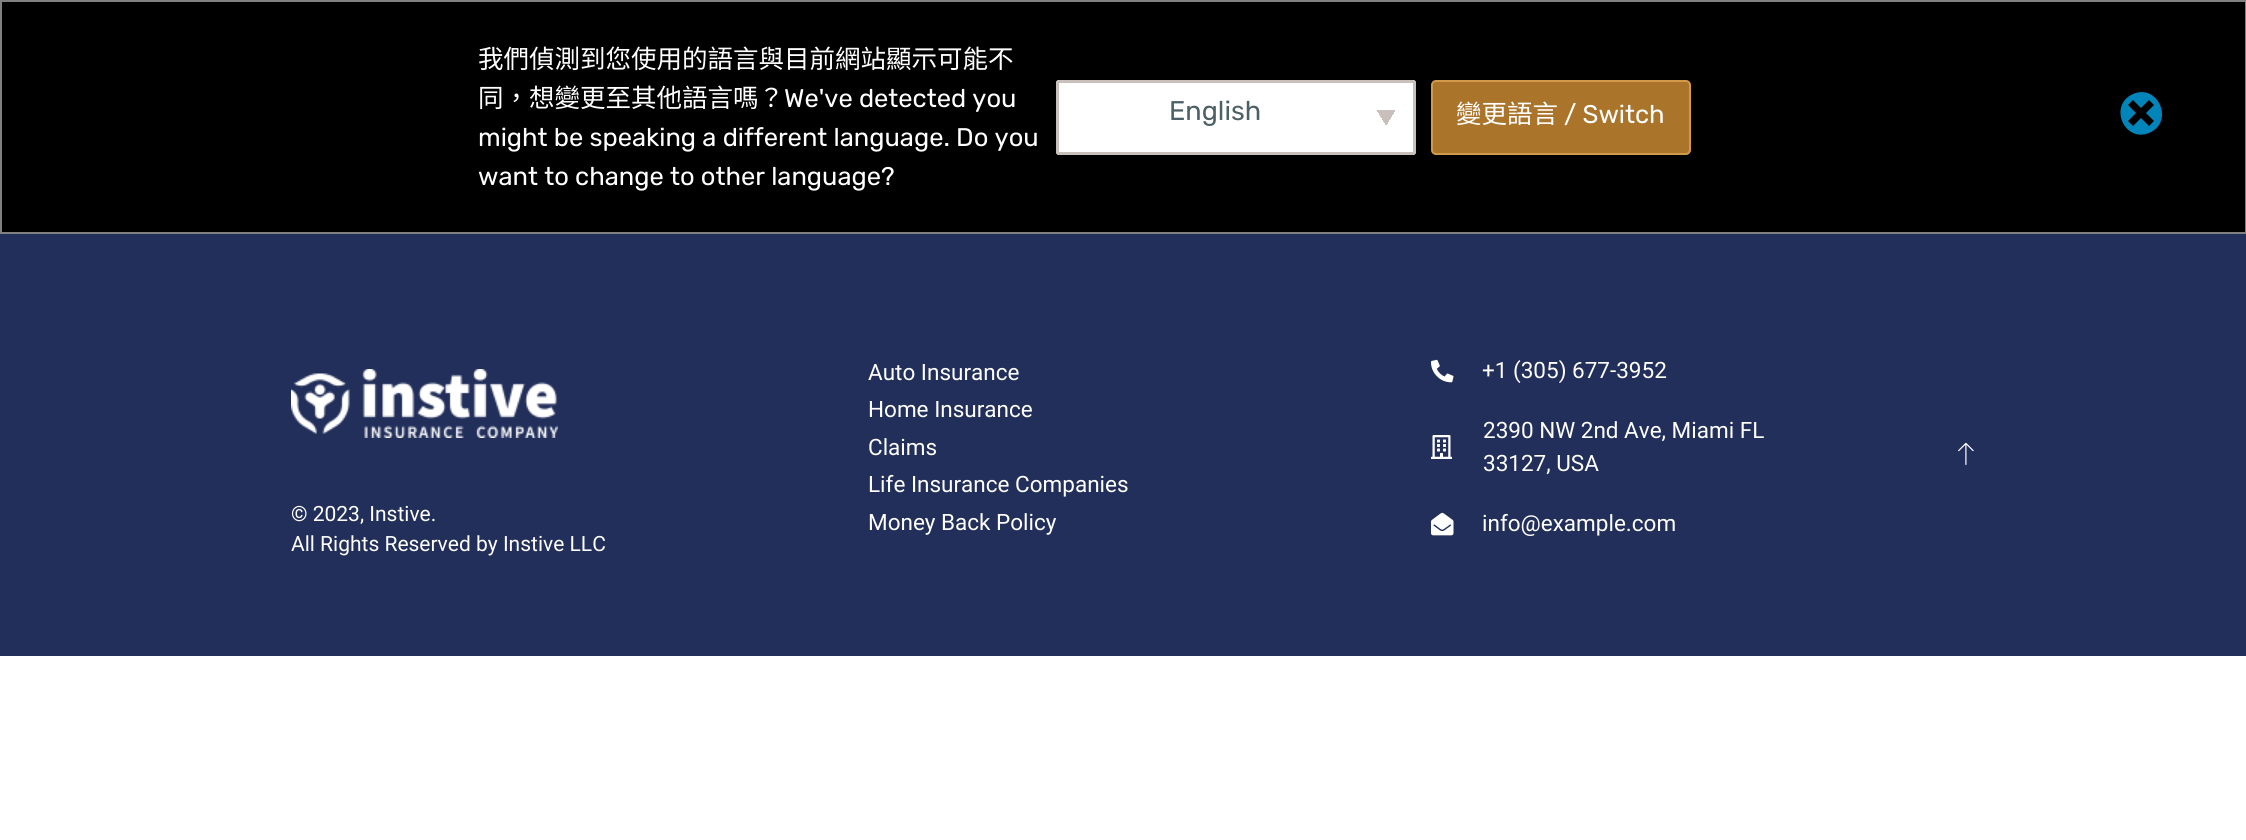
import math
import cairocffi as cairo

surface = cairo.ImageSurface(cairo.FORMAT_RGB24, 2246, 840)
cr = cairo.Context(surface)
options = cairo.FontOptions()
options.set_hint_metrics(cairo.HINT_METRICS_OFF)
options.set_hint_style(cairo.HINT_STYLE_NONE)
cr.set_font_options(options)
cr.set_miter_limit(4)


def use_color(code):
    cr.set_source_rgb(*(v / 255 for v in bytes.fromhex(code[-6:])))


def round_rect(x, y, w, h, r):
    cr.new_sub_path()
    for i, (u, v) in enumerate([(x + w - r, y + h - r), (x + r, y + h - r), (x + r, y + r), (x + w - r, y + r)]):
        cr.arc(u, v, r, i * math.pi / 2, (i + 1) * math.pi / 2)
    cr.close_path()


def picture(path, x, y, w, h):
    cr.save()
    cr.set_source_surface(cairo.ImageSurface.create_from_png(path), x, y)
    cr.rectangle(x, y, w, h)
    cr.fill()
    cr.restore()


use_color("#ffffff")
cr.paint()
use_color("#000000")
cr.rectangle(1, 1, 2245, 232)
cr.fill_preserve()
use_color("#808080")
cr.stroke()
cr.select_font_face("Noto Sans CJK TC")
cr.set_font_size(25.5)
use_color("#ffffff")
cr.move_to(478, 68)
cr.show_text("我們偵測到您使用的語言與目前網站顯示可能不")
cr.move_to(478, 107)
cr.show_text("同，想變更至其他語言嗎？")
cr.select_font_face("Rubik")
cr.move_to(784, 107)
cr.show_text("We've detected you")
cr.move_to(478, 146)
cr.show_text("might be speaking a different language. Do you")
cr.move_to(478, 185)
cr.show_text("want to change to other language?")
round_rect(1056, 80, 360, 75, 3)
cr.fill()
gradient = cairo.LinearGradient(1383, 114, 1398, 123)
gradient.add_color_stop_rgba(0.5, 0.788, 0.753, 0.733, 1)
gradient.add_color_stop_rgba(0.5, 1, 1, 1, 1)
cr.set_source(gradient)
cr.rectangle(1386, 110, 9, 15)
cr.fill()
gradient = cairo.LinearGradient(1374, 123, 1389, 114)
gradient.add_color_stop_rgba(0.5, 1, 1, 1, 1)
gradient.add_color_stop_rgba(0.5, 0.788, 0.753, 0.733, 1)
cr.set_source(gradient)
cr.rectangle(1377, 110, 9, 15)
cr.fill()
round_rect(1057.5, 81.5, 357, 72, 1.5)
use_color("#c9c0bb")
cr.set_line_width(3)
cr.stroke()
cr.set_font_size(27)
use_color("#4c6066")
cr.move_to(1169, 120)
cr.show_text("English")
use_color("#aa742a")
round_rect(1432, 81, 258, 73, 4)
cr.fill_preserve()
use_color("#d2994a")
cr.set_line_width(2)
cr.stroke()
cr.select_font_face("Noto Sans CJK TC")
cr.set_font_size(25.5)
use_color("#ffffff")
cr.move_to(1456, 123)
cr.show_text("變更語言")
cr.select_font_face("Rubik")
cr.move_to(1564, 123)
cr.show_text("/ Switch")
use_color("#0085ba")
cr.new_path()
cr.move_to(2133, 94)
cr.curve_to(2158, 83, 2175, 122, 2149, 133)
cr.curve_to(2124, 143, 2108, 105, 2133, 94)
cr.close_path()
cr.move_to(2154, 121)
cr.line_to(2146, 113)
cr.line_to(2154, 105)
cr.line_to(2149, 100)
cr.line_to(2141, 108)
cr.line_to(2133, 100)
cr.line_to(2128, 105)
cr.line_to(2136, 113)
cr.line_to(2128, 121)
cr.line_to(2133, 126)
cr.line_to(2141, 118)
cr.line_to(2149, 126)
cr.close_path()
cr.fill()
use_color("#222f5a")
cr.rectangle(0, 234, 2246, 422)
cr.fill()
picture("img1.png", 291, 369, 267, 69)
cr.select_font_face("Roboto")
cr.set_font_size(21)
use_color("#ffffff")
cr.move_to(291, 521)
cr.show_text("© 2023, Instive.")
cr.move_to(291, 551)
cr.show_text("All Rights Reserved by Instive LLC")
cr.set_font_size(22.5)
cr.move_to(868, 380)
cr.show_text("Auto Insurance")
cr.move_to(868, 417)
cr.show_text("Home Insurance")
cr.move_to(868, 455)
cr.show_text("Claims")
cr.move_to(868, 492)
cr.show_text("Life Insurance Companies")
cr.move_to(868, 530)
cr.show_text("Money Back Policy")
picture("img2.png", 1431, 359, 23, 24)
cr.move_to(1482, 378)
cr.show_text("+1 (305) 677-3952")
picture("img3.png", 1431, 435, 21, 24)
cr.move_to(1483, 438)
cr.show_text("2390 NW 2nd Ave, Miami FL")
cr.move_to(1483, 471)
cr.show_text("33127, USA")
picture("img4.png", 1431, 512, 23, 24)
cr.move_to(1482, 531)
cr.show_text("info@example.com")
picture("img5.png", 1958, 442, 16, 23)
surface.write_to_png("result.png")
